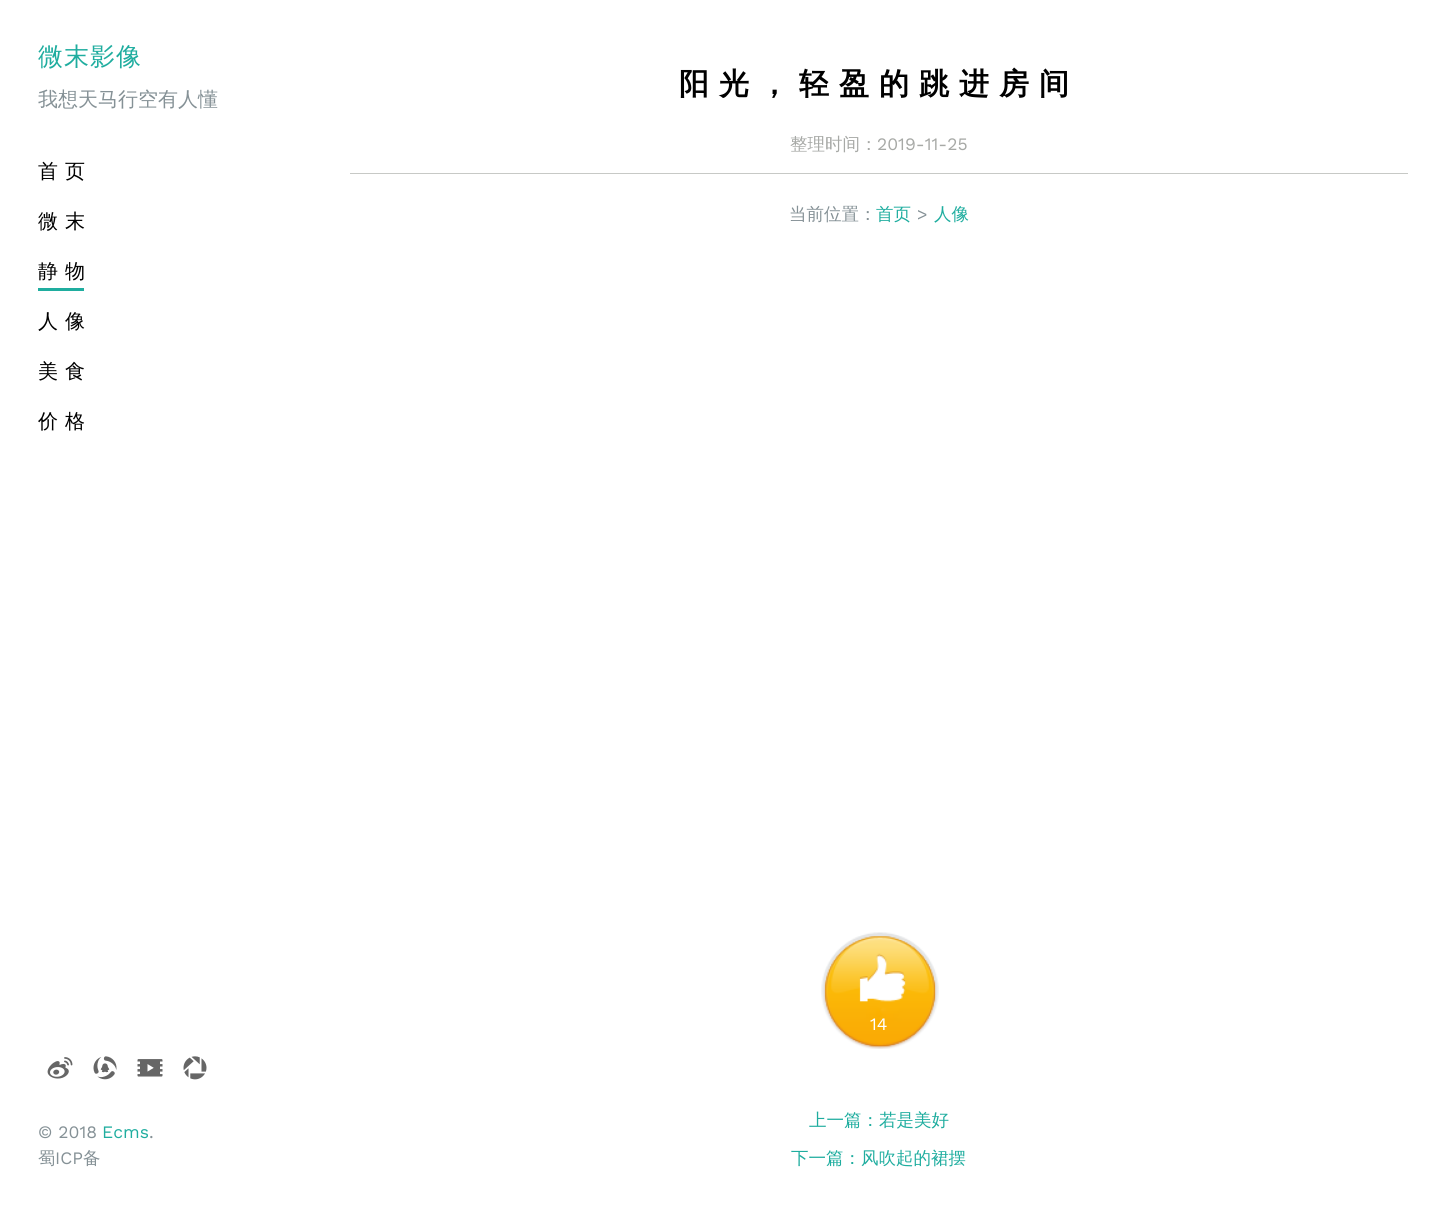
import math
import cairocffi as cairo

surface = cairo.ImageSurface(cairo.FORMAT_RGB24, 1445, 1216)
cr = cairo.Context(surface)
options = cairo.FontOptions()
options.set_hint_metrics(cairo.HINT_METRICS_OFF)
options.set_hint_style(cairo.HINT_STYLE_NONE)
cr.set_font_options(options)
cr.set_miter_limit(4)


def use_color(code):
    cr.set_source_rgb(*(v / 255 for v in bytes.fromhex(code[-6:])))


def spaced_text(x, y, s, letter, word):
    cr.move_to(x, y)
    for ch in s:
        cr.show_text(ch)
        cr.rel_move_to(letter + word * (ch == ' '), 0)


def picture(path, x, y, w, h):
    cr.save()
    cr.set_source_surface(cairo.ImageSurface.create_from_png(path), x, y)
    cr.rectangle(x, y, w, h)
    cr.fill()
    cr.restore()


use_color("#ffffff")
cr.paint()
cr.select_font_face("WenQuanYi Zen Hei Medium")
cr.set_font_size(25)
use_color("#1fad9f")
spaced_text(38, 65, "微末影像", 1, 0)
cr.set_font_size(20)
use_color("#859196")
cr.move_to(38, 106)
cr.show_text("我想天马行空有人懂")
use_color("#000000")
spaced_text(38, 178, "首 页", 0, 1)
spaced_text(38, 228, "微 末", 0, 1)
spaced_text(38, 278, "静 物", 0, 1)
use_color("#1fad9f")
cr.rectangle(38, 288, 46, 3)
cr.fill()
use_color("#000000")
spaced_text(38, 328, "人 像", 0, 1)
spaced_text(38, 378, "美 食", 0, 1)
spaced_text(38, 428, "价 格", 0, 1)
picture("img1.png", 47, 1057, 26, 22)
picture("img2.png", 93, 1056, 24, 24)
picture("img3.png", 137, 1059, 26, 18)
picture("img4.png", 183, 1056, 24, 24)
cr.select_font_face("Work Sans")
cr.set_font_size(17.5)
use_color("#859196")
cr.move_to(38, 1138)
cr.show_text("© 2018")
use_color("#1fad9f")
cr.move_to(102, 1138)
cr.show_text("Ecms")
use_color("#859196")
cr.move_to(149, 1138)
cr.show_text(".")
cr.select_font_face("WenQuanYi Zen Hei Medium")
cr.move_to(38, 1164)
cr.show_text("蜀")
cr.select_font_face("Work Sans")
cr.move_to(55, 1164)
cr.show_text("ICP")
cr.select_font_face("WenQuanYi Zen Hei Medium")
cr.move_to(83, 1164)
cr.show_text("备")
cr.select_font_face("WenQuanYi Zen Hei", cairo.FONT_SLANT_NORMAL, cairo.FONT_WEIGHT_BOLD)
cr.set_font_size(30)
use_color("#000000")
spaced_text(679, 94, "阳光，轻盈的跳进房间", 10, 0)
use_color("#c7c9c6")
cr.rectangle(350, 173, 1058, 1)
cr.fill()
cr.select_font_face("WenQuanYi Zen Hei Medium")
cr.set_font_size(17.5)
use_color("#a7a9a6")
cr.move_to(790, 150)
cr.show_text("整理时间：")
cr.select_font_face("Work Sans")
cr.move_to(877, 150)
cr.show_text("2019-11-25")
cr.select_font_face("WenQuanYi Zen Hei Medium")
use_color("#859196")
cr.move_to(789, 220)
cr.show_text("当前位置：")
use_color("#1fad9f")
cr.move_to(876, 220)
cr.show_text("首页")
cr.select_font_face("Work Sans")
use_color("#859196")
cr.move_to(917, 220)
cr.show_text(">")
cr.select_font_face("WenQuanYi Zen Hei Medium")
use_color("#1fad9f")
cr.move_to(934, 220)
cr.show_text("人像")
picture("img5.png", 821, 932, 118, 117)
cr.select_font_face("Work Sans")
use_color("#ffffff")
cr.move_to(870, 1030)
cr.show_text("14")
cr.select_font_face("WenQuanYi Zen Hei Medium")
use_color("#1fad9f")
cr.move_to(809, 1126)
cr.show_text("上一篇：若是美好")
cr.move_to(791, 1164)
cr.show_text("下一篇：风吹起的裙摆")
surface.write_to_png("result.png")
